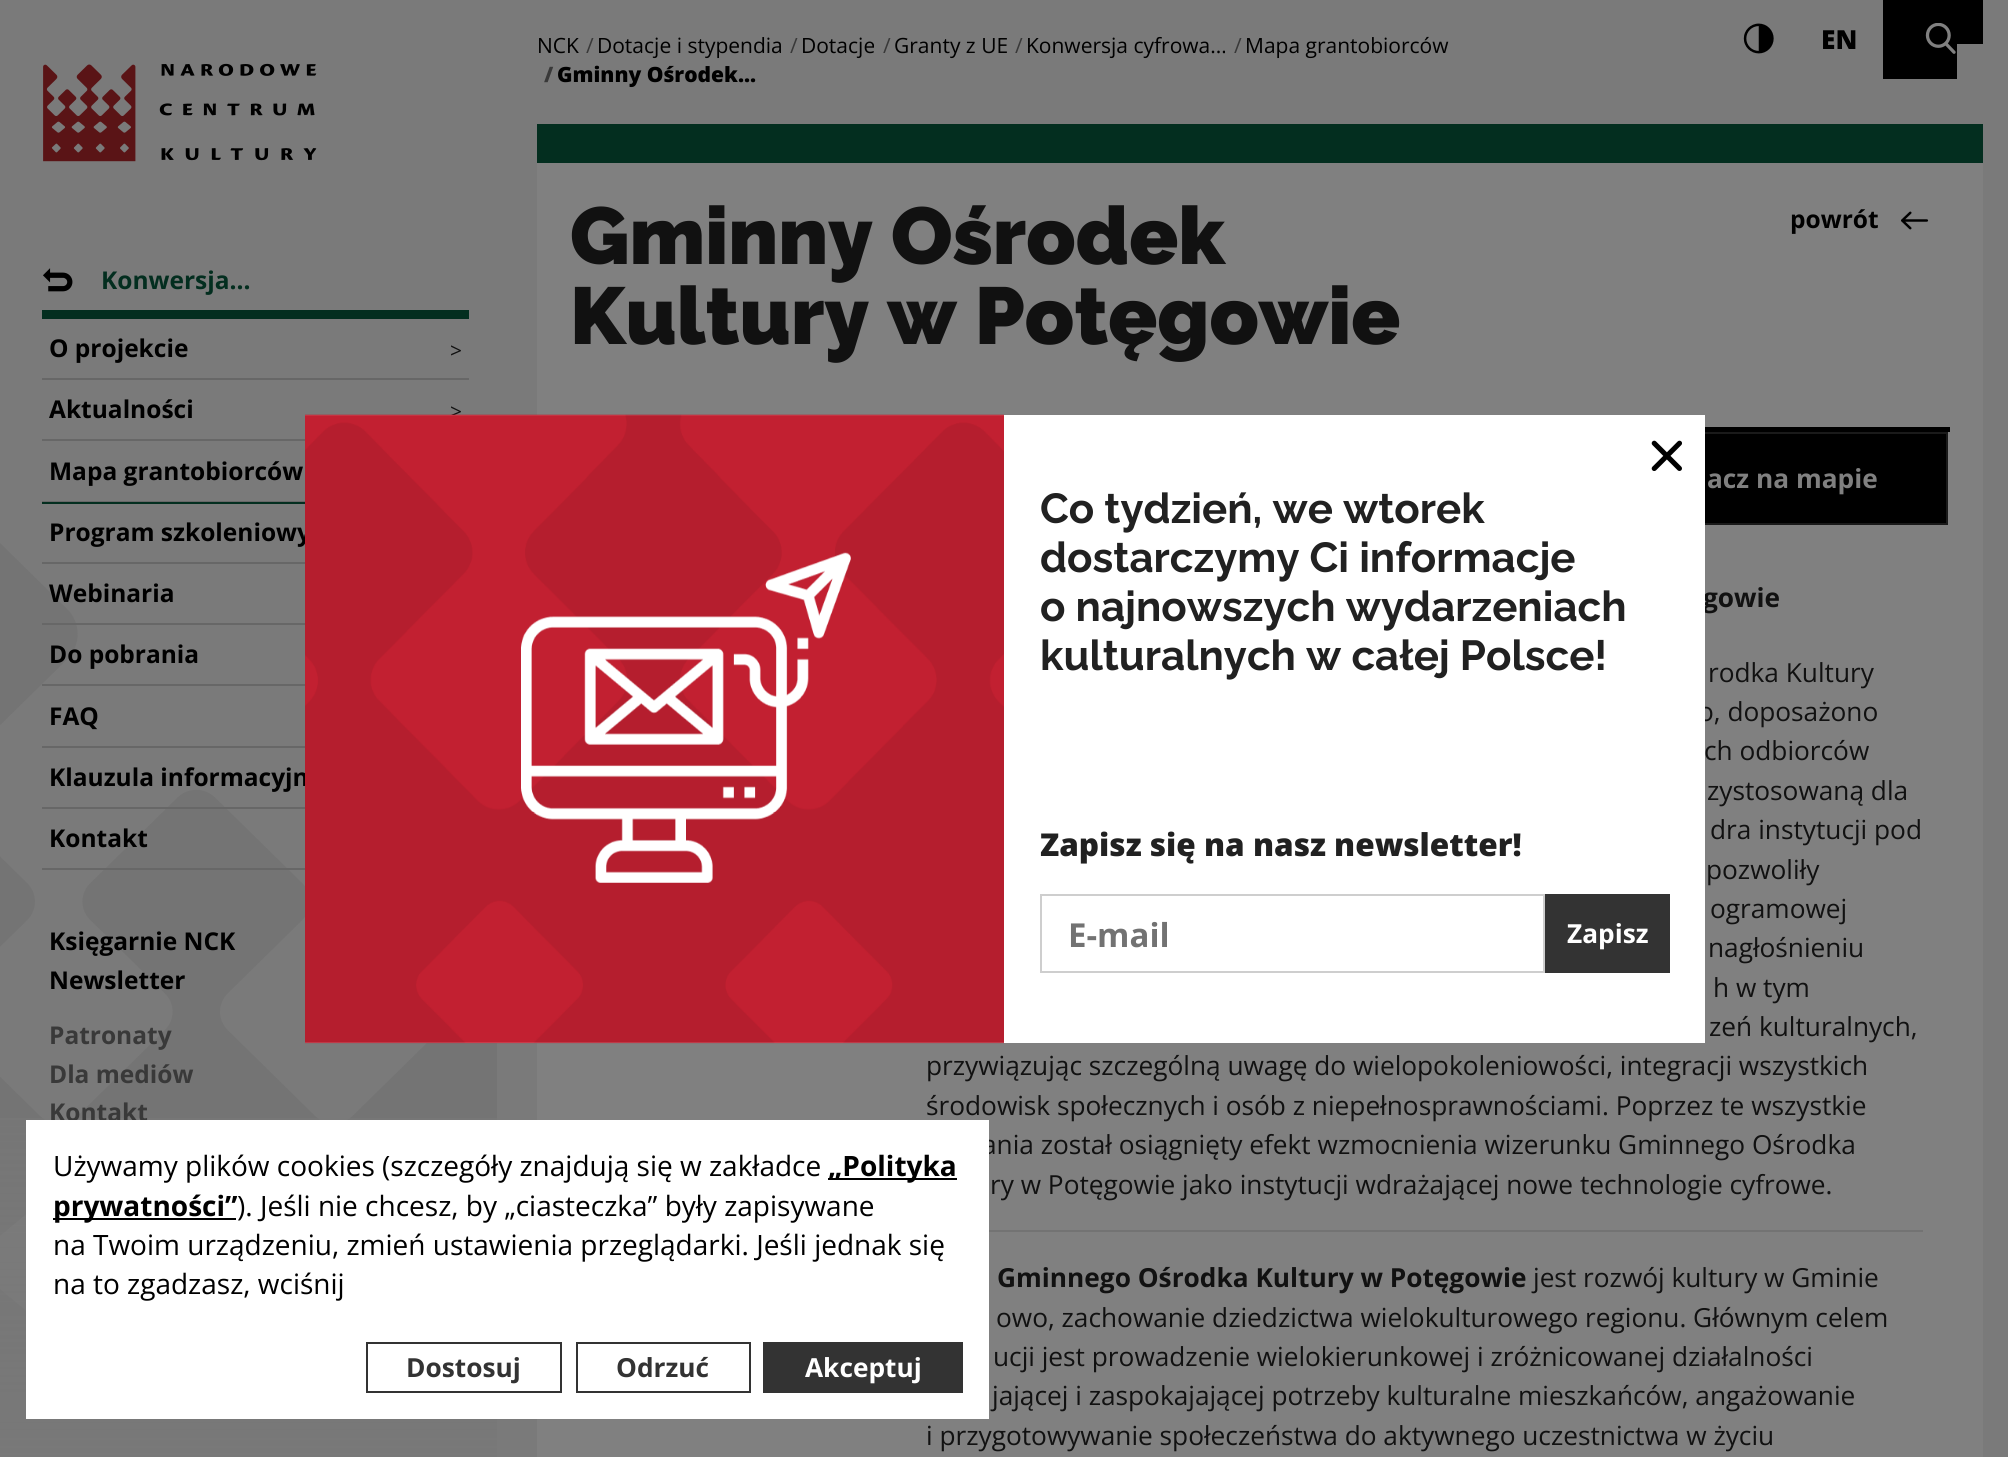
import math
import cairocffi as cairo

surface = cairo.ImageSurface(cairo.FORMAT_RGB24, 2008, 1457)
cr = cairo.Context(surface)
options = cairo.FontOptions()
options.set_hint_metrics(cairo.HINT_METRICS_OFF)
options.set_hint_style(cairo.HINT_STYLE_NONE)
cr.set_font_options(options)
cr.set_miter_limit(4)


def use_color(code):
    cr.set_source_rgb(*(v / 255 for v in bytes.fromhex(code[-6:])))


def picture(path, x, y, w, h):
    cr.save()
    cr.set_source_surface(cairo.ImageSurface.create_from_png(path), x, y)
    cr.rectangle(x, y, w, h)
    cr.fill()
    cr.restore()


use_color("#7a7a7a")
cr.paint()
picture("img1.png", 43, 64, 93, 98)
picture("img2.png", 159, 63, 158, 98)
use_color("#032e1f")
cr.rectangle(42, 310, 427, 9)
cr.fill()
picture("img3.png", 43, 268, 30, 24)
cr.select_font_face("Open Sans", cairo.FONT_SLANT_NORMAL, cairo.FONT_WEIGHT_BOLD)
cr.set_font_size(24.5)
cr.move_to(101, 289)
cr.show_text("Konwersja...")
use_color("#676767")
cr.rectangle(42, 378, 427, 2)
cr.fill()
use_color("#000000")
cr.move_to(49, 357)
cr.show_text("O projekcie")
cr.select_font_face("Open Sans")
cr.set_font_size(21)
use_color("#111111")
cr.move_to(450, 358)
cr.show_text(">")
use_color("#676767")
cr.rectangle(42, 439, 263, 2)
cr.fill()
cr.select_font_face("Open Sans", cairo.FONT_SLANT_NORMAL, cairo.FONT_WEIGHT_BOLD)
cr.set_font_size(24.5)
use_color("#000000")
cr.move_to(49, 418)
cr.show_text("Aktualności")
cr.select_font_face("Open Sans")
cr.set_font_size(21)
use_color("#111111")
cr.move_to(450, 419)
cr.show_text(">")
use_color("#676767")
cr.rectangle(42, 501, 263, 1)
cr.fill()
cr.select_font_face("Open Sans", cairo.FONT_SLANT_NORMAL, cairo.FONT_WEIGHT_BOLD)
cr.set_font_size(24.5)
use_color("#000000")
cr.move_to(49, 480)
cr.show_text("Mapa grantobiorców")
use_color("#032e1f")
cr.rectangle(42, 502, 263, 2)
cr.fill()
picture("img4.png", 0, 543, 497, 914)
use_color("#676767")
cr.rectangle(42, 562, 263, 2)
cr.fill()
use_color("#000000")
cr.move_to(49, 541)
cr.show_text("Program szkoleniowy")
use_color("#676767")
cr.rectangle(42, 623, 263, 2)
cr.fill()
use_color("#000000")
cr.move_to(49, 602)
cr.show_text("Webinaria")
use_color("#676767")
cr.rectangle(42, 684, 263, 2)
cr.fill()
use_color("#000000")
cr.move_to(49, 663)
cr.show_text("Do pobrania")
use_color("#676767")
cr.rectangle(42, 746, 263, 2)
cr.fill()
use_color("#000000")
cr.move_to(49, 725)
cr.show_text("FAQ")
use_color("#676767")
cr.rectangle(42, 807, 263, 2)
cr.fill()
use_color("#000000")
cr.move_to(49, 786)
cr.show_text("Klauzula informacyjn")
use_color("#676767")
cr.rectangle(42, 868, 263, 2)
cr.fill()
use_color("#000000")
cr.move_to(49, 847)
cr.show_text("Kontakt")
cr.move_to(49, 950)
cr.show_text("Księgarnie NCK")
cr.move_to(49, 989)
cr.show_text("Newsletter")
use_color("#393939")
cr.move_to(49, 1044)
cr.show_text("Patronaty")
cr.move_to(49, 1083)
cr.show_text("Dla mediów")
gradient = cairo.LinearGradient(-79, 787, -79, 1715)
gradient.add_color_stop_rgba(0, 0.478, 0.478, 0.478, 0)
gradient.add_color_stop_rgba(1, 0.478, 0.478, 0.478, 1)
cr.set_source(gradient)
cr.rectangle(0, 1118, 497, 339)
cr.fill()
use_color("#393939")
cr.move_to(49, 1121)
cr.show_text("Kontakt")
use_color("#032e1f")
cr.rectangle(537, 124, 1446, 39)
cr.fill()
cr.select_font_face("Open Sans")
cr.set_font_size(21)
use_color("#000000")
cr.move_to(537, 53)
cr.show_text("NCK")
use_color("#393939")
cr.move_to(586, 53)
cr.show_text("/")
use_color("#000000")
cr.move_to(597, 53)
cr.show_text("Dotacje i stypendia")
use_color("#393939")
cr.move_to(790, 53)
cr.show_text("/")
use_color("#000000")
cr.move_to(801, 53)
cr.show_text("Dotacje")
use_color("#393939")
cr.move_to(883, 53)
cr.show_text("/")
use_color("#000000")
cr.move_to(894, 53)
cr.show_text("Granty z UE")
use_color("#393939")
cr.move_to(1015, 53)
cr.show_text("/")
use_color("#000000")
cr.move_to(1026, 53)
cr.show_text("Konwersja cyfrowa...")
use_color("#393939")
cr.move_to(1234, 53)
cr.show_text("/")
use_color("#000000")
cr.move_to(1245, 53)
cr.show_text("Mapa grantobiorców")
cr.select_font_face("Open Sans ExtraBold")
use_color("#393939")
cr.move_to(544, 82)
cr.show_text("/")
use_color("#000000")
cr.move_to(557, 82)
cr.show_text("Gminny Ośrodek...")
picture("img5.png", 1743, 23, 31, 31)
cr.set_font_size(26.25)
cr.move_to(1821, 49)
cr.show_text("EN")
cr.rectangle(1883, 0, 74, 79)
cr.fill()
cr.rectangle(1957, 0, 26, 44)
cr.fill()
picture("img6.png", 1925, 23, 31, 31)
use_color("#808080")
cr.rectangle(537, 163, 1446, 1294)
cr.fill()
cr.select_font_face("Raleway Black")
cr.set_font_size(80.5)
use_color("#111111")
cr.move_to(570, 264)
cr.show_text("Gminny Ośrodek")
cr.move_to(570, 344)
cr.show_text("Kultury w Potęgowie")
cr.select_font_face("Open Sans", cairo.FONT_SLANT_NORMAL, cairo.FONT_WEIGHT_BOLD)
cr.set_font_size(24.5)
use_color("#000000")
cr.move_to(1790, 228)
cr.show_text("powrót")
picture("img7.png", 1901, 211, 28, 19)
cr.rectangle(1705, 427, 245, 5)
cr.fill()
cr.rectangle(1705, 434, 241, 89)
cr.fill()
cr.rectangle(1639, 433, 308, 91)
use_color("#1a1a1a")
cr.stroke()
cr.set_font_size(26.25)
use_color("#808080")
cr.move_to(1707, 488)
cr.show_text("acz na mapie")
use_color("#111111")
cr.move_to(1703, 607)
cr.show_text("gowie")
cr.select_font_face("Open Sans")
cr.move_to(1708, 682)
cr.show_text("rodka Kultury")
cr.move_to(1698, 721)
cr.show_text("o, doposażono")
cr.move_to(1704, 760)
cr.show_text("ch odbiorców")
cr.move_to(1707, 800)
cr.show_text("zystosowaną dla")
cr.move_to(1710, 839)
cr.show_text("dra instytucji pod")
cr.move_to(1706, 879)
cr.show_text("pozwoliły")
cr.move_to(1710, 918)
cr.show_text("ogramowej")
cr.move_to(1708, 957)
cr.show_text("nagłośnieniu")
cr.move_to(1713, 997)
cr.show_text("h w tym")
cr.move_to(1709, 1036)
cr.show_text("zeń kulturalnych,")
cr.move_to(926, 1075)
cr.show_text("przywiązując szczególną uwagę do wielopokoleniowości, integracji wszystkich")
cr.move_to(926, 1115)
cr.show_text("środowisk społecznych i osób z niepełnosprawnościami. Poprzez te wszystkie")
cr.move_to(982, 1154)
cr.show_text("ania został osiągnięty efekt wzmocnienia wizerunku Gminnego Ośrodka")
cr.move_to(990, 1194)
cr.show_text("ry w Potęgowie jako instytucji wdrażającej nowe technologie cyfrowe.")
use_color("#737373")
cr.rectangle(989, 1230, 934, 2)
cr.fill()
cr.select_font_face("Open Sans", cairo.FONT_SLANT_NORMAL, cairo.FONT_WEIGHT_BOLD)
use_color("#111111")
cr.move_to(997, 1287)
cr.show_text("Gminnego Ośrodka Kultury w Potęgowie")
cr.select_font_face("Open Sans")
cr.move_to(1533, 1287)
cr.show_text("jest rozwój kultury w Gminie")
cr.move_to(996, 1327)
cr.show_text("owo, zachowanie dziedzictwa wielokulturowego regionu. Głównym celem")
cr.move_to(993, 1366)
cr.show_text("ucji jest prowadzenie wielokierunkowej i zróżnicowanej działalności")
cr.move_to(992, 1405)
cr.show_text("jającej i zaspokajającej potrzeby kulturalne mieszkańców, angażowanie")
cr.move_to(926, 1445)
cr.show_text("i przygotowywanie społeczeństwa do aktywnego uczestnictwa w życiu")
use_color("#ffffff")
cr.rectangle(305, 415, 1400, 628)
cr.fill()
picture("img8.png", 1651, 440, 31, 31)
picture("img9.png", 305, 414, 699, 630)
cr.select_font_face("Raleway", cairo.FONT_SLANT_NORMAL, cairo.FONT_WEIGHT_BOLD)
cr.set_font_size(42)
use_color("#212121")
cr.move_to(1040, 523)
cr.show_text("Co tydzień, we wtorek")
cr.move_to(1040, 572)
cr.show_text("dostarczymy Ci informacje")
cr.move_to(1040, 621)
cr.show_text("o najnowszych wydarzeniach")
cr.move_to(1040, 670)
cr.show_text("kulturalnych w całej Polsce!")
cr.select_font_face("Open Sans ExtraBold")
cr.set_font_size(31.5)
cr.move_to(1040, 856)
cr.show_text("Zapisz się na nasz newsletter!")
cr.rectangle(1041, 895, 503, 77)
use_color("#cecece")
cr.stroke()
cr.select_font_face("Open Sans", cairo.FONT_SLANT_NORMAL, cairo.FONT_WEIGHT_BOLD)
cr.set_font_size(33)
use_color("#727272")
cr.move_to(1068, 947)
cr.show_text("E-mail")
use_color("#333333")
cr.rectangle(1545, 894, 125, 79)
cr.fill()
cr.set_font_size(26.25)
use_color("#ffffff")
cr.move_to(1567, 943)
cr.show_text("Zapisz")
cr.rectangle(26, 1120, 963, 299)
cr.fill()
cr.select_font_face("Open Sans")
cr.set_font_size(28)
use_color("#000000")
cr.move_to(53, 1176)
cr.show_text("Używamy plików cookies (szczegóły znajdują się w zakładce")
cr.rectangle(828, 1178, 129, 2)
cr.fill()
cr.select_font_face("Open Sans", cairo.FONT_SLANT_NORMAL, cairo.FONT_WEIGHT_BOLD)
cr.move_to(828, 1176)
cr.show_text("„Polityka")
cr.rectangle(53, 1218, 183, 2)
cr.fill()
cr.move_to(53, 1216)
cr.show_text("prywatności”")
cr.select_font_face("Open Sans")
cr.move_to(237, 1216)
cr.show_text("). Jeśli nie chcesz, by „ciasteczka” były zapisywane")
cr.move_to(53, 1255)
cr.show_text("na Twoim urządzeniu, zmień ustawienia przeglądarki. Jeśli jednak się")
cr.move_to(53, 1294)
cr.show_text("na to zgadzasz, wciśnij")
cr.rectangle(367, 1343, 194, 49)
use_color("#333333")
cr.stroke()
cr.select_font_face("Open Sans", cairo.FONT_SLANT_NORMAL, cairo.FONT_WEIGHT_BOLD)
cr.set_font_size(26.25)
cr.move_to(406, 1377)
cr.show_text("Dostosuj")
cr.rectangle(577, 1343, 173, 49)
cr.stroke()
cr.move_to(616, 1377)
cr.show_text("Odrzuć")
cr.rectangle(763, 1342, 200, 51)
cr.fill()
use_color("#ffffff")
cr.move_to(805, 1377)
cr.show_text("Akceptuj")
surface.write_to_png("result.png")
